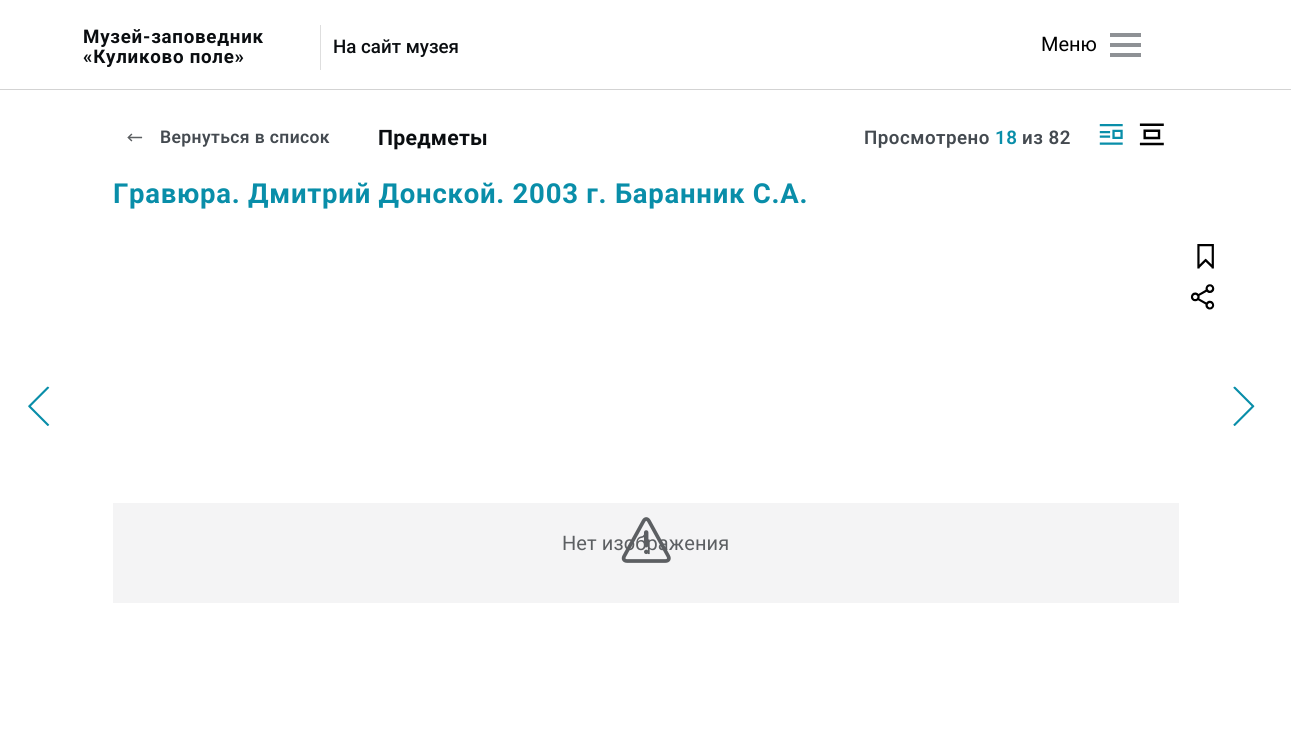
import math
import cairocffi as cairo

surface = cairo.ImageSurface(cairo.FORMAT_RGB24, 1291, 742)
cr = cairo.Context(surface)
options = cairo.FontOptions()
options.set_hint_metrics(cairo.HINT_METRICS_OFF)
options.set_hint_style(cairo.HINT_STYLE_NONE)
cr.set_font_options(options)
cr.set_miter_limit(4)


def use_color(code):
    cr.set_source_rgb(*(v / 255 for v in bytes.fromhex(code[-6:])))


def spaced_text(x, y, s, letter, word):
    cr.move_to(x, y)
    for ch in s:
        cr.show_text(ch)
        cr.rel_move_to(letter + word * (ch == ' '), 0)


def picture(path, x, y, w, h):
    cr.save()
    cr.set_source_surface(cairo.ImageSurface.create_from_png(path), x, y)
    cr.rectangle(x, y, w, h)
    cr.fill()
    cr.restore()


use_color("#ffffff")
cr.paint()
use_color("#d3d3d3")
cr.rectangle(0, 89, 1291, 1)
cr.fill()
cr.select_font_face("Roboto", cairo.FONT_SLANT_NORMAL, cairo.FONT_WEIGHT_BOLD)
cr.set_font_size(18.75)
use_color("#0a0d10")
spaced_text(83, 43, "Музей-заповедник", 0.75, 0)
spaced_text(83, 63, "«Куликово поле»", 0.75, 0)
use_color("#dedede")
cr.rectangle(320, 25, 1, 45)
cr.fill()
cr.select_font_face("Roboto Medium")
use_color("#0a0d10")
cr.move_to(333, 53)
cr.show_text("На сайт музея")
use_color("#8e9195")
cr.rectangle(1110, 33, 31, 4)
cr.fill()
cr.select_font_face("Roboto")
cr.set_font_size(20)
use_color("#000000")
cr.move_to(1041, 51)
cr.show_text("Меню")
use_color("#8e9195")
cr.rectangle(1110, 43, 31, 4)
cr.fill()
cr.rectangle(1110, 53, 31, 4)
cr.fill()
picture("img1.png", 127, 133, 16, 9)
cr.select_font_face("Roboto SemiBold")
cr.set_font_size(17.5)
use_color("#444a50")
spaced_text(160, 143, "Вернуться в список", 0.4, 0)
cr.select_font_face("Roboto", cairo.FONT_SLANT_NORMAL, cairo.FONT_WEIGHT_BOLD)
cr.set_font_size(21.25)
use_color("#0a0d10")
spaced_text(378, 145, "Предметы", 0.25, 0)
cr.select_font_face("Roboto SemiBold")
cr.set_font_size(18.75)
use_color("#444a50")
spaced_text(864, 144, "Просмотрено", 0.5, 0)
use_color("#098ea9")
spaced_text(995, 144, "18", 0.5, 0)
use_color("#444a50")
spaced_text(1022, 144, "из 82", 0.5, 0)
picture("img2.png", 1099, 124, 24, 21)
picture("img3.png", 1139, 123, 25, 23)
cr.select_font_face("Roboto", cairo.FONT_SLANT_NORMAL, cairo.FONT_WEIGHT_BOLD)
cr.set_font_size(27.5)
use_color("#098ea9")
spaced_text(113, 203, "Гравюра. Дмитрий Донской. 2003 г. Баранник С.А.", 0.75, 0)
picture("img4.png", 28, 386, 22, 40)
picture("img5.png", 1233, 386, 22, 40)
picture("img6.png", 1197, 244, 17, 25)
picture("img7.png", 1190, 284, 25, 26)
use_color("#f4f4f5")
cr.rectangle(113, 503, 1066, 100)
cr.fill()
cr.select_font_face("Roboto")
cr.set_font_size(20)
use_color("#5c5f62")
spaced_text(562, 550, "Нет изображения", 0.1, 0)
picture("img8.png", 621, 517, 50, 46)
surface.write_to_png("result.png")
